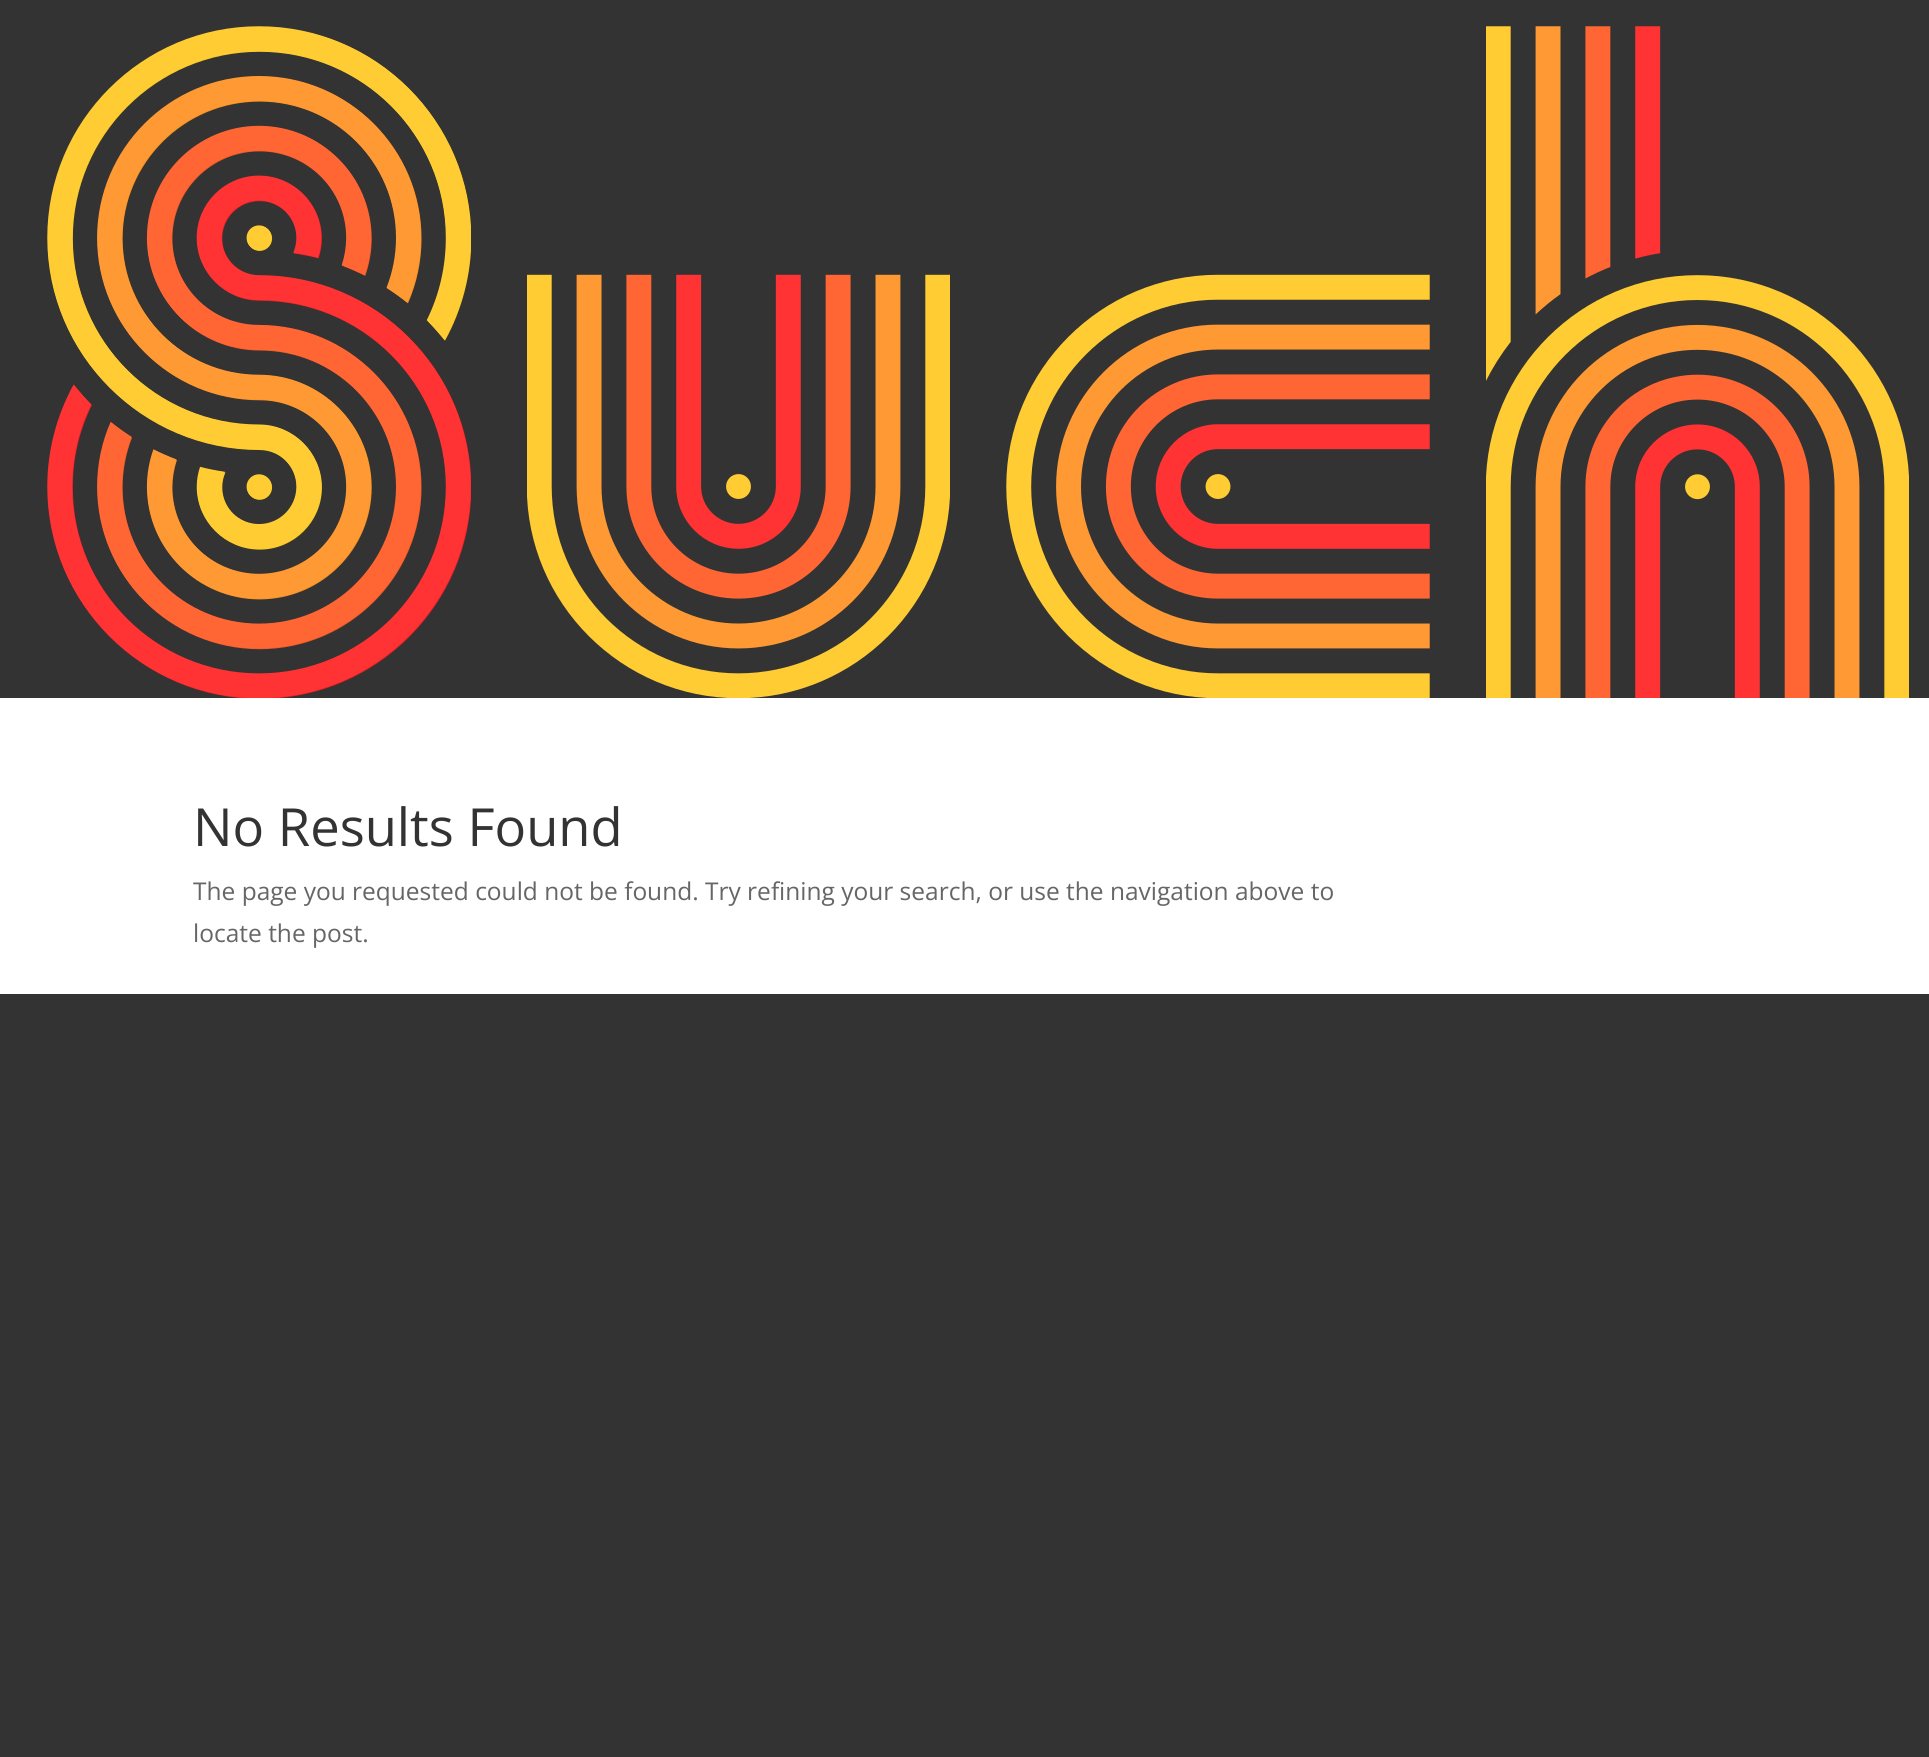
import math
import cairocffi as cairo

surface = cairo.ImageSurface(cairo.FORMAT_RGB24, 1929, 1757)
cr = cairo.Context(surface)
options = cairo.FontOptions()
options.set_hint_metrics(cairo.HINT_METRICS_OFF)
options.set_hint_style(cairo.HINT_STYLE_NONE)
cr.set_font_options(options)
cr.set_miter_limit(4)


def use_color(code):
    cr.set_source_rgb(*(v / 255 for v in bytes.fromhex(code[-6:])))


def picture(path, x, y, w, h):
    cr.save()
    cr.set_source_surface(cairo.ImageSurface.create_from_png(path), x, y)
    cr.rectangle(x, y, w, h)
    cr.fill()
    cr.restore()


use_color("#333333")
cr.paint()
picture("img1.png", 47, 26, 424, 672)
picture("img2.png", 527, 274, 423, 424)
picture("img3.png", 1006, 274, 424, 424)
picture("img4.png", 1486, 26, 423, 672)
use_color("#ffffff")
cr.rectangle(0, 698, 1929, 296)
cr.fill()
cr.select_font_face("Open Sans")
cr.set_font_size(52.5)
use_color("#333333")
cr.move_to(193, 846)
cr.show_text("No Results Found")
cr.set_font_size(24.5)
use_color("#666666")
cr.move_to(193, 900)
cr.show_text("The page you requested could not be found. Try refining your search, or use the navigation above to")
cr.move_to(193, 942)
cr.show_text("locate the post.")
surface.write_to_png("result.png")
